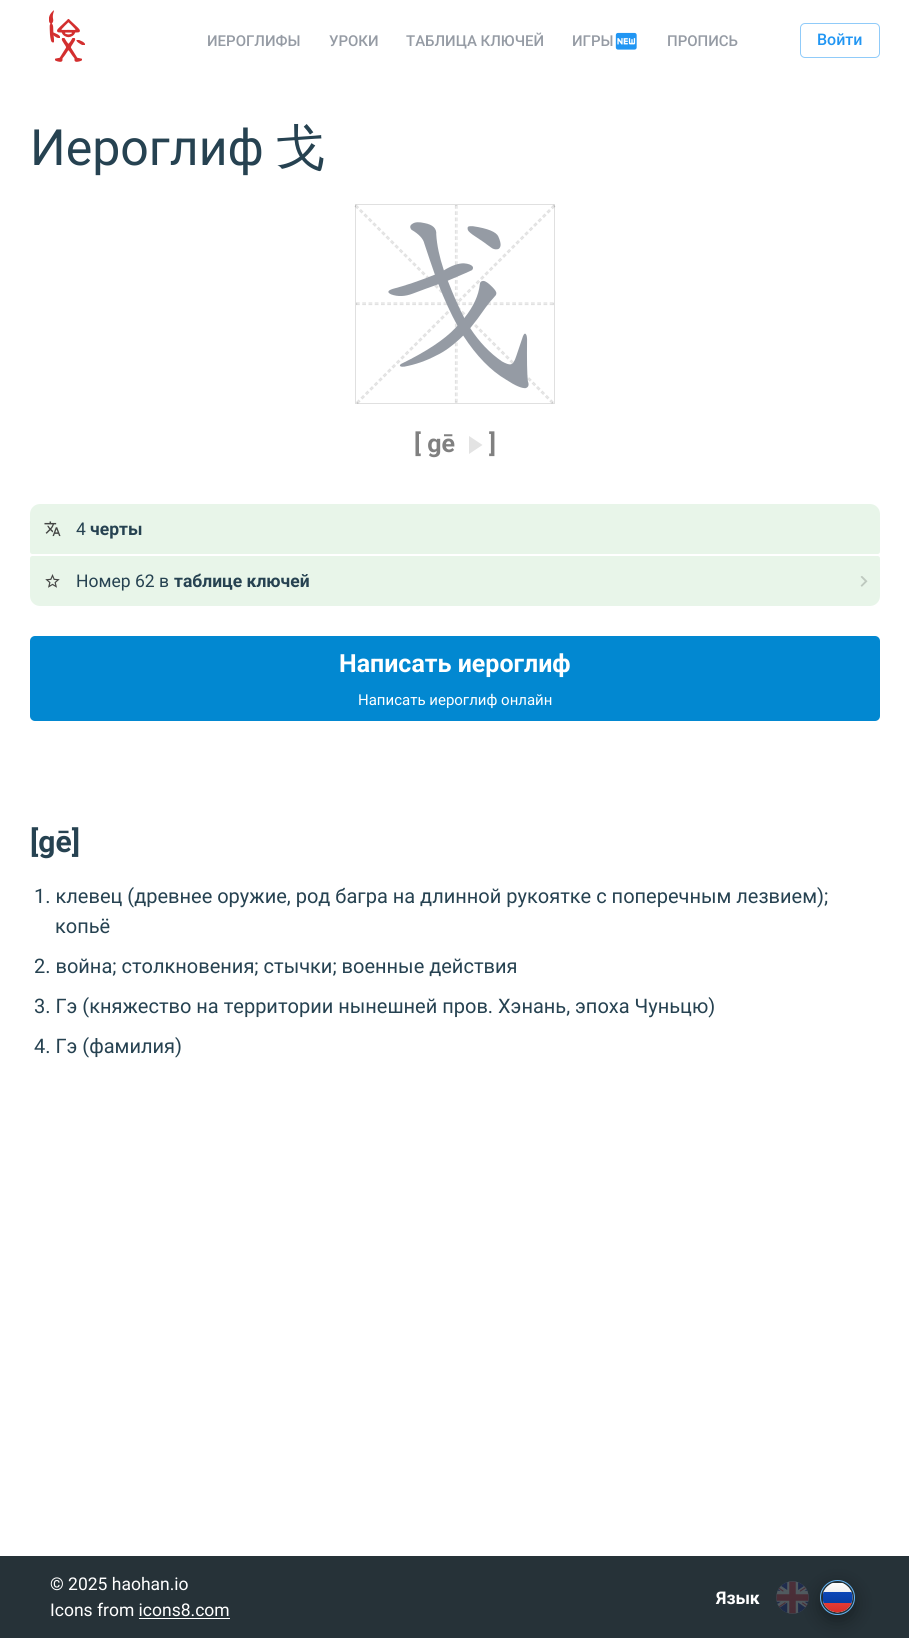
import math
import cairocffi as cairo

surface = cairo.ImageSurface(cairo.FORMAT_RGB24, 909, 1638)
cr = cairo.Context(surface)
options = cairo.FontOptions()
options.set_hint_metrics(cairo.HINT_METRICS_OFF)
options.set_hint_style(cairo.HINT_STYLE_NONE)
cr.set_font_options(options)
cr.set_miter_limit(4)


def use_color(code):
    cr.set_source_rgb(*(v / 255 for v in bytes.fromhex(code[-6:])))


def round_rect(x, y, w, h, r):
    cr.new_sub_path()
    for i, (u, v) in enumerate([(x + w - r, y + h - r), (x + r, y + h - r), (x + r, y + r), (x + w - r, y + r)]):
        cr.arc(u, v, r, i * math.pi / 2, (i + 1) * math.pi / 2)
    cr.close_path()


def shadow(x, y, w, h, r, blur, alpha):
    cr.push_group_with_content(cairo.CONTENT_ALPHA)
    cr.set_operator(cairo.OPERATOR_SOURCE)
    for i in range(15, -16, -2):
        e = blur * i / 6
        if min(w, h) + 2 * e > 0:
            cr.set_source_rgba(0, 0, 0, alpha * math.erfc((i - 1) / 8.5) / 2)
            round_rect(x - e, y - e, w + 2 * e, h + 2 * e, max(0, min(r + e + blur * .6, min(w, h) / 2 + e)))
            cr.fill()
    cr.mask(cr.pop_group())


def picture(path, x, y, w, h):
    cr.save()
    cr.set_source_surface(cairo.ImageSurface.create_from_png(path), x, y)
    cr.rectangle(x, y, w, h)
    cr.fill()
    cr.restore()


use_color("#ffffff")
cr.paint()
picture("img1.png", 49, 10, 36, 52)
cr.select_font_face("Roboto Medium")
cr.set_font_size(15)
use_color("#959ba4")
cr.move_to(207, 46)
cr.show_text("ИЕРОГЛИФЫ")
cr.move_to(329, 46)
cr.show_text("УРОКИ")
cr.move_to(406, 46)
cr.show_text("ТАБЛИЦА КЛЮЧЕЙ")
cr.move_to(572, 46)
cr.show_text("ИГРЫ")
picture("img2.png", 615, 32, 22, 18)
cr.move_to(667, 46)
cr.show_text("ПРОПИСЬ")
round_rect(800.5, 23.5, 79, 34, 4.5)
use_color("#90cbf9")
cr.set_line_width(1)
cr.stroke()
cr.set_font_size(16)
use_color("#2196f3")
cr.move_to(817, 45)
cr.show_text("Войти")
cr.select_font_face("Roboto")
cr.set_font_size(50)
use_color("#264251")
cr.move_to(30, 165)
cr.show_text("Иероглиф")
cr.select_font_face("WenQuanYi Zen Hei Medium")
cr.move_to(276, 165)
cr.show_text("戈")
cr.rectangle(355.5, 204.5, 199, 199)
use_color("#e0e0e0")
cr.stroke()
cr.new_path()
cr.move_to(455, 205)
cr.line_to(457.5, 205)
cr.line_to(456, 206)
cr.close_path()
cr.fill()
cr.new_path()
cr.move_to(356, 303)
cr.line_to(554, 303)
cr.set_line_width(1.2)
cr.set_dash([3.75, 2.5])
cr.stroke()
cr.set_source_rgba(0, 0, 0, 0.12)
cr.new_path()
cr.move_to(554, 302.5)
cr.line_to(554, 305)
cr.line_to(552.5, 304)
cr.close_path()
cr.fill()
cr.new_path()
cr.move_to(356, 304.5)
cr.line_to(554, 304.5)
cr.stroke()
cr.new_path()
cr.move_to(457, 205)
cr.line_to(457, 402.5)
cr.stroke()
cr.new_path()
cr.move_to(457.5, 402.5)
cr.line_to(455, 402.5)
cr.line_to(456, 401)
cr.close_path()
cr.fill()
cr.new_path()
cr.move_to(455.5, 205)
cr.line_to(455.5, 402.5)
cr.stroke()
cr.new_path()
cr.move_to(356, 305)
cr.line_to(356, 302.5)
cr.line_to(357.5, 304)
cr.close_path()
cr.fill()
cr.new_path()
cr.move_to(356.5, 402.5)
cr.line_to(554, 205)
cr.set_line_width(1.3)
cr.set_dash([3.75, 2.51])
cr.stroke()
cr.new_path()
cr.move_to(553.5, 204.5)
cr.line_to(555.5, 206.5)
cr.line_to(553.5, 206.5)
cr.close_path()
cr.fill()
cr.new_path()
cr.move_to(357.5, 403.5)
cr.line_to(555, 206)
cr.stroke()
cr.new_path()
cr.move_to(358, 404)
cr.line_to(356, 402)
cr.line_to(358, 402)
cr.close_path()
cr.fill()
cr.new_path()
cr.move_to(356, 205)
cr.line_to(553.5, 402.5)
cr.stroke()
use_color("#d5d5d5")
cr.new_path()
cr.move_to(553.5, 402)
cr.line_to(552, 404)
cr.line_to(552, 402)
cr.close_path()
cr.fill()
cr.new_path()
cr.move_to(355, 206)
cr.line_to(552.5, 403.5)
cr.set_source_rgba(0, 0, 0, 0.12)
cr.stroke()
cr.new_path()
cr.move_to(354.5, 206.5)
cr.line_to(356, 204.5)
cr.line_to(356, 206.5)
cr.close_path()
cr.fill()
picture("img3.png", 388, 222, 141, 167)
cr.select_font_face("Roboto", cairo.FONT_SLANT_NORMAL, cairo.FONT_WEIGHT_BOLD)
cr.set_font_size(25)
use_color("#808080")
cr.move_to(414, 452)
cr.show_text("[ gē")
use_color("#e3e3e3")
cr.new_path()
cr.move_to(469, 436)
cr.line_to(469, 454)
cr.line_to(482.5, 445)
cr.close_path()
cr.fill()
use_color("#808080")
cr.move_to(489, 452)
cr.show_text("]")
use_color("#e8f5e9")
cr.new_path()
cr.move_to(40, 504)
cr.line_to(870, 504)
cr.curve_to(875.5, 504, 880, 508.5, 880, 514)
cr.line_to(880, 551.5)
cr.curve_to(880, 553, 879, 554, 877.5, 554)
cr.line_to(32.5, 554)
cr.curve_to(31, 554, 30, 553, 30, 551.5)
cr.line_to(30, 514)
cr.curve_to(30, 508.5, 34.5, 504, 40, 504)
cr.close_path()
cr.fill()
picture("img4.png", 44, 521, 17, 16)
cr.select_font_face("Roboto")
cr.set_font_size(17.5)
use_color("#264251")
cr.move_to(76, 535)
cr.show_text("4")
cr.select_font_face("Roboto", cairo.FONT_SLANT_NORMAL, cairo.FONT_WEIGHT_BOLD)
cr.move_to(90, 535)
cr.show_text("черты")
use_color("#e8f5e9")
cr.new_path()
cr.move_to(32.5, 556)
cr.line_to(877.5, 556)
cr.curve_to(879, 556, 880, 557, 880, 558.5)
cr.line_to(880, 596)
cr.curve_to(880, 601.5, 875.5, 606, 870, 606)
cr.line_to(40, 606)
cr.curve_to(34.5, 606, 30, 601.5, 30, 596)
cr.line_to(30, 558.5)
cr.curve_to(30, 557, 31, 556, 32.5, 556)
cr.close_path()
cr.fill()
picture("img5.png", 45, 574, 15, 14)
cr.select_font_face("Roboto")
use_color("#264251")
cr.move_to(76, 587)
cr.show_text("Номер 62 в")
cr.select_font_face("Roboto", cairo.FONT_SLANT_NORMAL, cairo.FONT_WEIGHT_BOLD)
cr.move_to(174, 587)
cr.show_text("таблице ключей")
picture("img6.png", 860, 576, 8, 11)
use_color("#0288d1")
round_rect(30, 636, 850, 85, 5)
cr.fill()
cr.set_font_size(25)
use_color("#ffffff")
cr.move_to(339, 672)
cr.show_text("Написать иероглиф")
cr.select_font_face("Roboto")
cr.set_font_size(15)
cr.move_to(358, 705)
cr.show_text("Написать иероглиф онлайн")
cr.select_font_face("Roboto", cairo.FONT_SLANT_NORMAL, cairo.FONT_WEIGHT_BOLD)
cr.set_font_size(30)
use_color("#264251")
cr.move_to(30, 852)
cr.show_text("[gē]")
cr.select_font_face("Roboto")
cr.set_font_size(20)
cr.move_to(34, 903)
cr.show_text("1. клевец (древнее оружие, род багра на длинной рукоятке с поперечным лезвием);")
cr.move_to(55, 933)
cr.show_text("копьё")
cr.move_to(34, 973)
cr.show_text("2. война; столкновения; стычки; военные действия")
cr.move_to(34, 1013)
cr.show_text("3. Гэ (княжество на территории нынешней пров. Хэнань, эпоха Чуньцю)")
cr.move_to(34, 1053)
cr.show_text("4. Гэ (фамилия)")
use_color("#263238")
cr.rectangle(0, 1556, 909, 82)
cr.fill()
cr.set_font_size(17.5)
use_color("#ffffff")
cr.move_to(50, 1590)
cr.show_text("© 2025 haohan.io")
cr.move_to(50, 1616)
cr.show_text("Icons from icons8.com")
cr.rectangle(139, 1618, 91, 1)
cr.fill()
cr.select_font_face("Roboto", cairo.FONT_SLANT_NORMAL, cairo.FONT_WEIGHT_BOLD)
cr.move_to(716, 1604)
cr.show_text("Язык")
cr.save()
cr.set_fill_rule(cairo.FILL_RULE_EVEN_ODD)
cr.new_path()
cr.move_to(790, 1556)
cr.line_to(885, 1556)
cr.line_to(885, 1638)
cr.line_to(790, 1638)
cr.close_path()
cr.move_to(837.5, 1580)
cr.curve_to(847, 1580, 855, 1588, 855, 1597.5)
cr.curve_to(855, 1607, 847, 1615, 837.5, 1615)
cr.curve_to(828, 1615, 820, 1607, 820, 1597.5)
cr.curve_to(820, 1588, 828, 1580, 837.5, 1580)
cr.close_path()
cr.clip()
use_color("#000000")
shadow(820, 1586, 35, 35, 17.5, 9.5, 0.35)
cr.restore()
picture("img7.png", 823, 1583, 30, 30)
cr.arc(837.5, 1597.5, 17, 0, 2 * math.pi)
use_color("#64b5f6")
cr.set_line_width(1)
cr.set_dash([])
cr.stroke()
picture("img8.png", 776, 1581, 33, 33)
surface.write_to_png("result.png")
